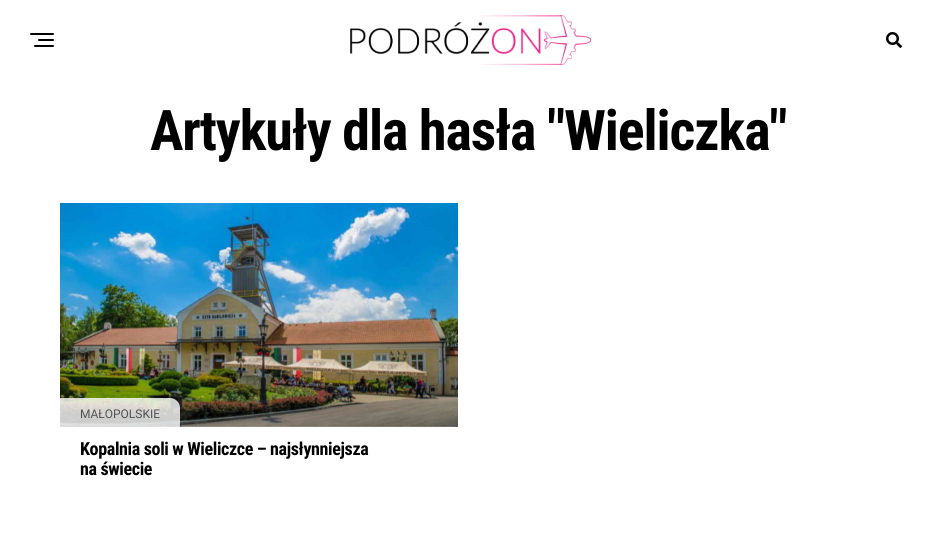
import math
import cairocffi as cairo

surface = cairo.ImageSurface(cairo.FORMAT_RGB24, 936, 551)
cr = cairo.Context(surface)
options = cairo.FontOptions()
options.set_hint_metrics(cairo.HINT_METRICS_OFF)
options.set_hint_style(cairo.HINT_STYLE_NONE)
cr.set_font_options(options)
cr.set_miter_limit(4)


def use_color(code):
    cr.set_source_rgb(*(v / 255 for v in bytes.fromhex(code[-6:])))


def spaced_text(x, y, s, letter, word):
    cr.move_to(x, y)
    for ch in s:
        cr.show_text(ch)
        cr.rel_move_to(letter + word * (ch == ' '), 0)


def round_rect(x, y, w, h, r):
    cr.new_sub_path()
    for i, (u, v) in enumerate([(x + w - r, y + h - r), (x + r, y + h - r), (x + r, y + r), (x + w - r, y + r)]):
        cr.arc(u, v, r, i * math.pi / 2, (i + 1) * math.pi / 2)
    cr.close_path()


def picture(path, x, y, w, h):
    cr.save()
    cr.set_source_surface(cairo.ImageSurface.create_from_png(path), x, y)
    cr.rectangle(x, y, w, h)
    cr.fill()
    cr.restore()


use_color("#ffffff")
cr.paint()
use_color("#000000")
round_rect(30, 33, 24, 2, 1)
cr.fill()
round_rect(38, 39, 16, 2, 1)
cr.fill()
round_rect(34, 45, 20, 2, 1)
cr.fill()
picture("img1.png", 350, 15, 241, 50)
picture("img2.png", 886, 32, 16, 16)
cr.select_font_face("Roboto Condensed", cairo.FONT_SLANT_NORMAL, cairo.FONT_WEIGHT_BOLD)
cr.set_font_size(56)
spaced_text(150, 150, "Artykuły dla hasła \"Wieliczka\"", -1.1, 0)
picture("img3.png", 60, 203, 398, 224)
cr.set_source_rgba(1, 1, 1, 0.8)
cr.new_path()
cr.move_to(60, 398)
cr.line_to(170, 398)
cr.curve_to(175.5, 398, 180, 402.5, 180, 408)
cr.line_to(180, 429)
cr.line_to(60, 429)
cr.close_path()
cr.fill()
cr.select_font_face("Roboto")
cr.set_font_size(12)
use_color("#535353")
cr.move_to(80, 418)
cr.show_text("MAŁOPOLSKIE")
cr.select_font_face("Roboto Condensed", cairo.FONT_SLANT_NORMAL, cairo.FONT_WEIGHT_BOLD)
cr.set_font_size(18)
use_color("#000000")
spaced_text(80, 455, "Kopalnia soli w Wieliczce – najsłynniejsza", -0.35, 0)
spaced_text(80, 475, "na świecie", -0.35, 0)
surface.write_to_png("result.png")
